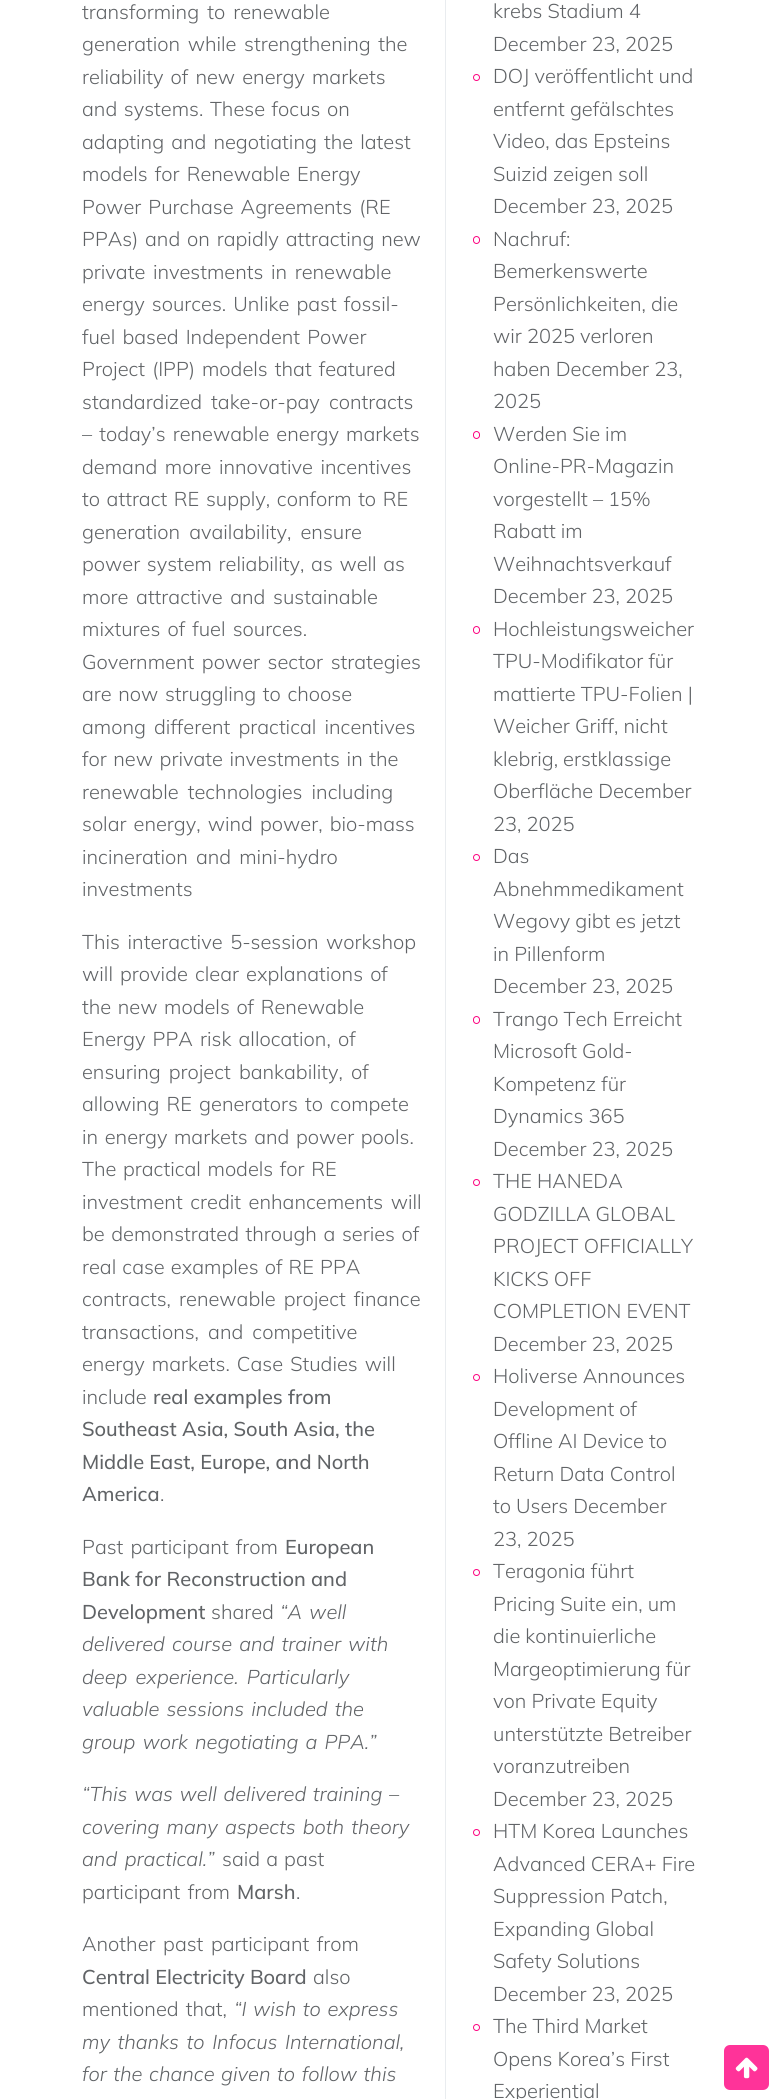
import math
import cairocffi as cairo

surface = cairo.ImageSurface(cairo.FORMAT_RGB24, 778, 2099)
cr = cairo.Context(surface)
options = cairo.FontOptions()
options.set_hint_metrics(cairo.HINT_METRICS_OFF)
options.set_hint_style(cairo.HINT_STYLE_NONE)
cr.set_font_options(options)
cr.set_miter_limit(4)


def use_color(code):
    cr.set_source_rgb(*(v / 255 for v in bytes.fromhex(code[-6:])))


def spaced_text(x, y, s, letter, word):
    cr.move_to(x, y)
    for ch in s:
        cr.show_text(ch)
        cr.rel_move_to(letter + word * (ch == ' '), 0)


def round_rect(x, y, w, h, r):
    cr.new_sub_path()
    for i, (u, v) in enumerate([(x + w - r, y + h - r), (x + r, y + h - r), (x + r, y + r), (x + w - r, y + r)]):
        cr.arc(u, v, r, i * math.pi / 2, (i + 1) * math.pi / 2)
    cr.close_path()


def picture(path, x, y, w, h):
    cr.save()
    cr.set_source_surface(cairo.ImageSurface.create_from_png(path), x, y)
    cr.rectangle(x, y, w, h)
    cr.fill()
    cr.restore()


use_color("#ffffff")
cr.paint()
cr.select_font_face("Mulish Light")
cr.set_font_size(20)
use_color("#606366")
spaced_text(82, 19, "transforming to renewable", 0, 3)
spaced_text(82, 51, "generation while strengthening the", 0, 2.5)
spaced_text(82, 84, "reliability of new energy markets", 0, 2)
spaced_text(82, 116, "and systems. These focus on", 0, 1.5)
spaced_text(82, 149, "adapting and negotiating the latest", 0, 2)
spaced_text(82, 181, "models for Renewable Energy", 0, 2)
spaced_text(82, 214, "Power Purchase Agreements (RE", 0, 2)
spaced_text(82, 246, "PPAs) and on rapidly attracting new", 0, 1.75)
spaced_text(82, 279, "private investments in renewable", 0, 2.5)
spaced_text(82, 311, "energy sources. Unlike past fossil-", 0, 2)
spaced_text(82, 344, "fuel based Independent Power", 0, 2)
spaced_text(82, 376, "Project (IPP) models that featured", 0, 2)
spaced_text(82, 409, "standardized take-or-pay contracts", 0, 4)
spaced_text(82, 441, "– today’s renewable energy markets", 0, 2)
spaced_text(82, 474, "demand more innovative incentives", 0, 2.5)
spaced_text(82, 506, "to attract RE supply, conform to RE", 0, 1.5)
spaced_text(82, 539, "generation availability, ensure", 0, 4)
spaced_text(82, 571, "power system reliability, as well as", 0, 1.5)
spaced_text(82, 604, "more attractive and sustainable", 0, 2.5)
spaced_text(82, 636, "mixtures of fuel sources.", 0, 2)
spaced_text(82, 669, "Government power sector strategies", 0, 2.5)
spaced_text(82, 701, "are now struggling to choose", 0, 1.5)
spaced_text(82, 734, "among different practical incentives", 0, 3)
spaced_text(82, 766, "for new private investments in the", 0, 1.5)
spaced_text(82, 799, "renewable technologies including", 0, 4)
spaced_text(82, 831, "solar energy, wind power, bio-mass", 0, 2)
spaced_text(82, 864, "incineration and mini-hydro", 0, 3)
cr.move_to(82, 896)
cr.show_text("investments")
spaced_text(82, 949, "This interactive 5-session workshop", 0, 2.5)
spaced_text(82, 981, "will provide clear explanations of", 0, 2)
spaced_text(82, 1014, "the new models of Renewable", 0, 1.5)
spaced_text(82, 1046, "Energy PPA risk allocation, of", 0, 2)
spaced_text(82, 1079, "ensuring project bankability, of", 0, 3)
spaced_text(82, 1111, "allowing RE generators to compete", 0, 2)
spaced_text(82, 1144, "in energy markets and power pools.", 0, 1.5)
spaced_text(82, 1176, "The practical models for RE", 0, 1.5)
spaced_text(82, 1209, "investment credit enhancements will", 0, 2.5)
spaced_text(82, 1241, "be demonstrated through a series of", 0, 1.5)
spaced_text(82, 1274, "real case examples of RE PPA", 0, 1)
spaced_text(82, 1306, "contracts, renewable project finance", 0, 3)
spaced_text(82, 1339, "transactions, and competitive", 0, 4)
spaced_text(82, 1371, "energy markets. Case Studies will", 0, 2)
cr.move_to(82, 1404)
cr.show_text("include")
cr.select_font_face("Mulish Medium")
cr.move_to(153, 1404)
cr.show_text("real examples from")
cr.move_to(82, 1436)
cr.show_text("Southeast Asia, South Asia, the")
cr.move_to(82, 1469)
cr.show_text("Middle East, Europe, and North")
cr.move_to(82, 1501)
cr.show_text("America")
cr.select_font_face("Mulish Light")
cr.move_to(160, 1501)
cr.show_text(".")
spaced_text(82, 1554, "Past participant from", 0, 2)
cr.select_font_face("Mulish Medium")
cr.move_to(285, 1554)
cr.show_text("European")
cr.move_to(82, 1586)
cr.show_text("Bank for Reconstruction and")
cr.move_to(82, 1619)
cr.show_text("Development")
cr.select_font_face("Mulish Light")
cr.move_to(211, 1619)
cr.show_text("shared")
cr.select_font_face("Mulish Light", cairo.FONT_SLANT_ITALIC)
spaced_text(280, 1619, "“A well", 0, 2)
spaced_text(82, 1651, "delivered course and trainer with", 0, 2)
spaced_text(82, 1684, "deep experience. Particularly", 0, 3)
spaced_text(82, 1716, "valuable sessions included the", 0, 2)
spaced_text(82, 1749, "group work negotiating a PPA.”", 0, 2)
spaced_text(82, 1801, "“This was well delivered training –", 0, 1.5)
spaced_text(82, 1834, "covering many aspects both theory", 0, 2)
spaced_text(82, 1866, "and practical.”", 0, 2.5)
cr.select_font_face("Mulish Light")
spaced_text(222, 1866, "said a past", 0, 1)
spaced_text(82, 1899, "participant from", 0, 2.5)
cr.select_font_face("Mulish Medium")
cr.move_to(237, 1899)
cr.show_text("Marsh")
cr.select_font_face("Mulish Light")
cr.move_to(296, 1899)
cr.show_text(".")
spaced_text(82, 1951, "Another past participant from", 0, 2.5)
cr.select_font_face("Mulish Medium")
cr.move_to(82, 1984)
cr.show_text("Central Electricity Board")
cr.select_font_face("Mulish Light")
cr.move_to(313, 1984)
cr.show_text("also")
spaced_text(82, 2016, "mentioned that,", 0, 2)
cr.select_font_face("Mulish Light", cairo.FONT_SLANT_ITALIC)
spaced_text(234, 2016, "“I wish to express", 0, 1.5)
spaced_text(82, 2049, "my thanks to Infocus International,", 0, 2.5)
spaced_text(82, 2081, "for the chance given to follow this", 0, 1.5)
use_color("#e9ecef")
cr.rectangle(445, 0, 1, 2099)
cr.fill()
cr.select_font_face("Mulish Light")
use_color("#606366")
cr.move_to(493, 18)
cr.show_text("krebs Stadium 4")
cr.move_to(493, 51)
cr.show_text("December 23, 2025")
cr.new_path()
cr.arc(476.5, 77.5, 3, 0, 2 * math.pi)
use_color("#fc0380")
cr.set_line_width(1)
cr.stroke()
use_color("#606366")
cr.move_to(493, 83)
cr.show_text("DOJ veröffentlicht und")
cr.move_to(493, 116)
cr.show_text("entfernt gefälschtes")
cr.move_to(493, 148)
cr.show_text("Video, das Epsteins")
cr.move_to(493, 181)
cr.show_text("Suizid zeigen soll")
cr.move_to(493, 213)
cr.show_text("December 23, 2025")
round_rect(473.5, 236.5, 6, 7, 3)
use_color("#fc0380")
cr.stroke()
use_color("#606366")
cr.move_to(493, 246)
cr.show_text("Nachruf:")
cr.move_to(493, 278)
cr.show_text("Bemerkenswerte")
cr.move_to(493, 311)
cr.show_text("Persönlichkeiten, die")
cr.move_to(493, 343)
cr.show_text("wir 2025 verloren")
cr.move_to(493, 376)
cr.show_text("haben December 23,")
cr.move_to(493, 408)
cr.show_text("2025")
round_rect(473.5, 431.5, 6, 7, 3)
use_color("#fc0380")
cr.stroke()
use_color("#606366")
cr.move_to(493, 441)
cr.show_text("Werden Sie im")
cr.move_to(493, 473)
cr.show_text("Online-PR-Magazin")
cr.move_to(493, 506)
cr.show_text("vorgestellt – 15%")
cr.move_to(493, 538)
cr.show_text("Rabatt im")
cr.move_to(493, 571)
cr.show_text("Weihnachtsverkauf")
cr.move_to(493, 603)
cr.show_text("December 23, 2025")
round_rect(473.5, 626.5, 6, 7, 3)
use_color("#fc0380")
cr.stroke()
use_color("#606366")
cr.move_to(493, 636)
cr.show_text("Hochleistungsweicher")
cr.move_to(493, 668)
cr.show_text("TPU-Modifikator für")
cr.move_to(493, 701)
cr.show_text("mattierte TPU-Folien |")
cr.move_to(493, 733)
cr.show_text("Weicher Griff, nicht")
cr.move_to(493, 766)
cr.show_text("klebrig, erstklassige")
cr.move_to(493, 798)
cr.show_text("Oberfläche December")
cr.move_to(493, 831)
cr.show_text("23, 2025")
cr.new_path()
cr.arc(476.5, 857.5, 3, 0, 2 * math.pi)
use_color("#fc0380")
cr.stroke()
use_color("#606366")
cr.move_to(493, 863)
cr.show_text("Das")
cr.move_to(493, 896)
cr.show_text("Abnehmmedikament")
cr.move_to(493, 928)
cr.show_text("Wegovy gibt es jetzt")
cr.move_to(493, 961)
cr.show_text("in Pillenform")
cr.move_to(493, 993)
cr.show_text("December 23, 2025")
round_rect(473.5, 1016.5, 6, 7, 3)
use_color("#fc0380")
cr.stroke()
use_color("#606366")
cr.move_to(493, 1026)
cr.show_text("Trango Tech Erreicht")
cr.move_to(493, 1058)
cr.show_text("Microsoft Gold-")
cr.move_to(493, 1091)
cr.show_text("Kompetenz für")
cr.move_to(493, 1123)
cr.show_text("Dynamics 365")
cr.move_to(493, 1156)
cr.show_text("December 23, 2025")
cr.new_path()
cr.arc(476.5, 1182.5, 3, 0, 2 * math.pi)
use_color("#fc0380")
cr.stroke()
use_color("#606366")
cr.move_to(493, 1188)
cr.show_text("THE HANEDA")
cr.move_to(493, 1221)
cr.show_text("GODZILLA GLOBAL")
cr.move_to(493, 1253)
cr.show_text("PROJECT OFFICIALLY")
cr.move_to(493, 1286)
cr.show_text("KICKS OFF")
cr.move_to(493, 1318)
cr.show_text("COMPLETION EVENT")
cr.move_to(493, 1351)
cr.show_text("December 23, 2025")
cr.new_path()
cr.arc(476.5, 1377.5, 3, 0, 2 * math.pi)
use_color("#fc0380")
cr.stroke()
use_color("#606366")
cr.move_to(493, 1383)
cr.show_text("Holiverse Announces")
cr.move_to(493, 1416)
cr.show_text("Development of")
cr.move_to(493, 1448)
cr.show_text("Offline AI Device to")
cr.move_to(493, 1481)
cr.show_text("Return Data Control")
cr.move_to(493, 1513)
cr.show_text("to Users December")
cr.move_to(493, 1546)
cr.show_text("23, 2025")
cr.new_path()
cr.arc(476.5, 1572.5, 3, 0, 2 * math.pi)
use_color("#fc0380")
cr.stroke()
use_color("#606366")
cr.move_to(493, 1578)
cr.show_text("Teragonia führt")
cr.move_to(493, 1611)
cr.show_text("Pricing Suite ein, um")
cr.move_to(493, 1643)
cr.show_text("die kontinuierliche")
cr.move_to(493, 1676)
cr.show_text("Margeoptimierung für")
cr.move_to(493, 1708)
cr.show_text("von Private Equity")
cr.move_to(493, 1741)
cr.show_text("unterstützte Betreiber")
cr.move_to(493, 1773)
cr.show_text("voranzutreiben")
cr.move_to(493, 1806)
cr.show_text("December 23, 2025")
cr.new_path()
cr.arc(476.5, 1832.5, 3, 0, 2 * math.pi)
use_color("#fc0380")
cr.stroke()
use_color("#606366")
cr.move_to(493, 1838)
cr.show_text("HTM Korea Launches")
cr.move_to(493, 1871)
cr.show_text("Advanced CERA+ Fire")
cr.move_to(493, 1903)
cr.show_text("Suppression Patch,")
cr.move_to(493, 1936)
cr.show_text("Expanding Global")
cr.move_to(493, 1968)
cr.show_text("Safety Solutions")
cr.move_to(493, 2001)
cr.show_text("December 23, 2025")
cr.new_path()
cr.arc(476.5, 2027.5, 3, 0, 2 * math.pi)
use_color("#fc0380")
cr.stroke()
use_color("#606366")
cr.move_to(493, 2033)
cr.show_text("The Third Market")
cr.move_to(493, 2066)
cr.show_text("Opens Korea’s First")
cr.move_to(493, 2098)
cr.show_text("Experiential")
use_color("#ff3399")
round_rect(725.5, 2046.5, 42, 42, 4.5)
cr.fill_preserve()
cr.set_line_width(3)
cr.stroke()
picture("img1.png", 735, 2057, 23, 22)
surface.write_to_png("result.png")
